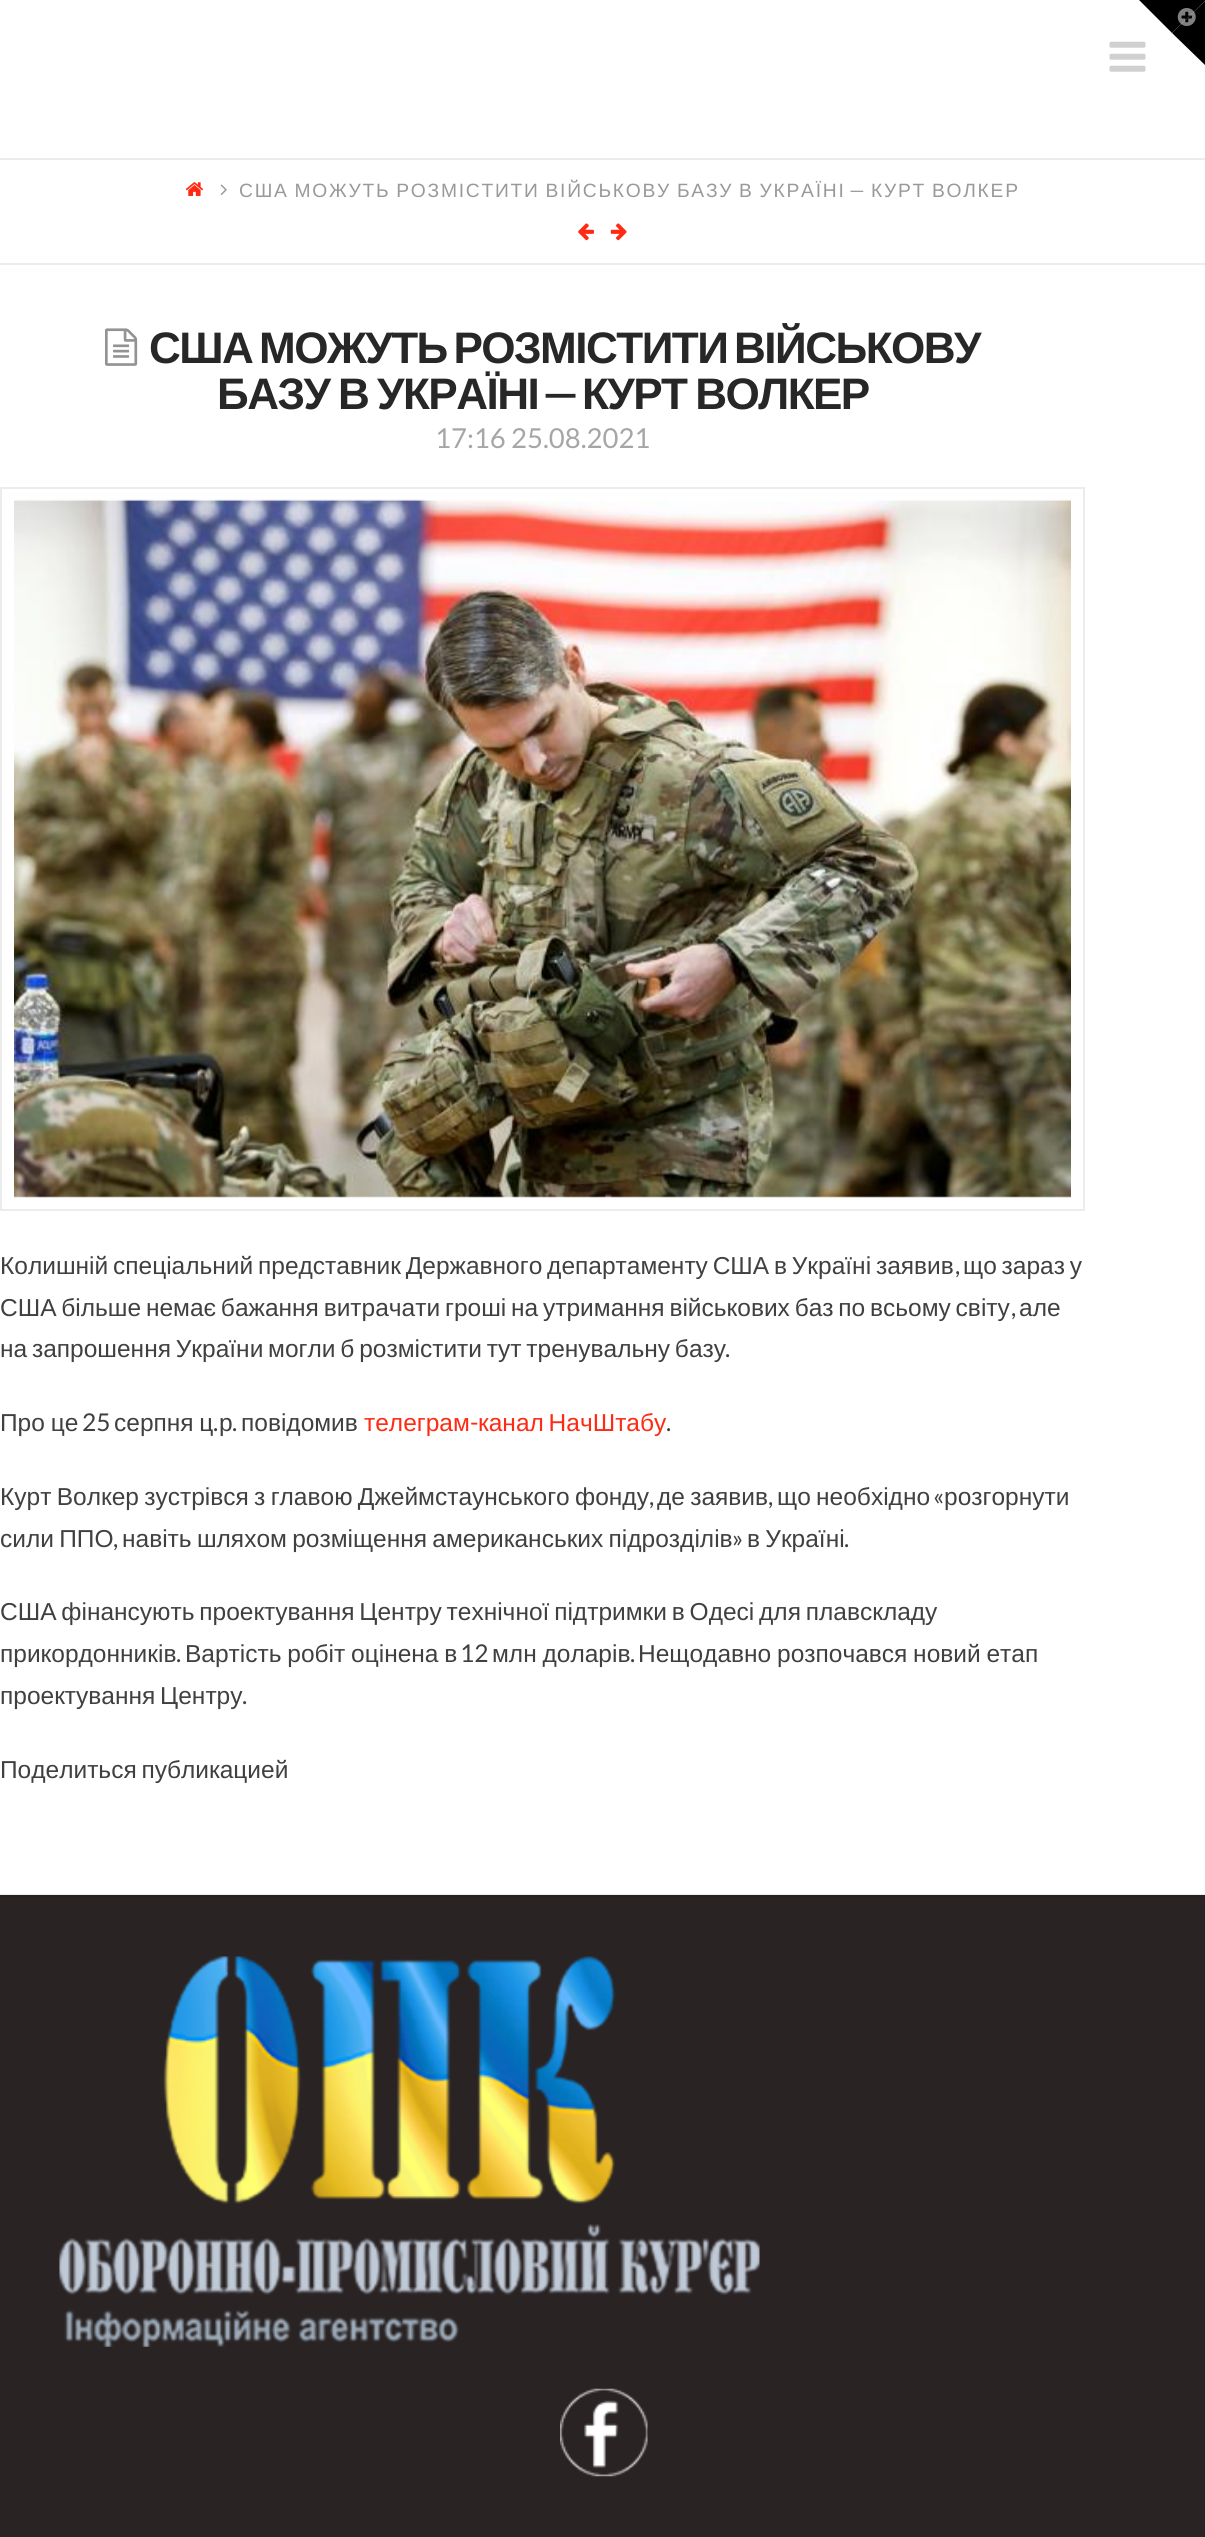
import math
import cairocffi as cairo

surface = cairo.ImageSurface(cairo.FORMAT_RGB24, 1205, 2537)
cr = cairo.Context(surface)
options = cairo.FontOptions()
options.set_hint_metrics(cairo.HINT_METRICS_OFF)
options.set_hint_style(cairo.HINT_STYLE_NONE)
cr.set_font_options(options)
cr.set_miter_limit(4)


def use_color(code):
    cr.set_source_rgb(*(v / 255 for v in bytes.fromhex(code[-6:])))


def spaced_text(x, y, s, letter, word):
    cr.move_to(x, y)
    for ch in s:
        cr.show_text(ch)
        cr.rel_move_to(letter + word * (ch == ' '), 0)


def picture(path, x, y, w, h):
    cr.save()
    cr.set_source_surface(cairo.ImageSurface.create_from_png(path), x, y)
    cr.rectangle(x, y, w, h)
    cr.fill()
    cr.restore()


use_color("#ffffff")
cr.paint()
use_color("#000000")
cr.new_path()
cr.move_to(1139, 0)
cr.line_to(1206, 0)
cr.line_to(1172, 33)
cr.close_path()
cr.fill()
cr.new_path()
cr.move_to(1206, 0)
cr.line_to(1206, 66)
cr.line_to(1172, 33)
cr.close_path()
cr.fill()
picture("img1.png", 1177, 8, 19, 18)
use_color("#ececec")
cr.rectangle(0, 158, 1205, 2)
cr.fill()
picture("img2.png", 1109, 41, 37, 31)
cr.rectangle(0, 263, 1205, 2)
cr.fill()
picture("img3.png", 185, 182, 19, 14)
picture("img4.png", 220, 184, 7, 12)
cr.select_font_face("Liberation Sans")
cr.set_font_size(19.25)
use_color("#999999")
spaced_text(239, 197, "США МОЖУТЬ РОЗМІСТИТИ ВІЙСЬКОВУ БАЗУ В УКРАЇНІ", 1.75, -1.25)
cr.select_font_face("Lato")
spaced_text(849, 197, "—", 1.75, 0)
cr.select_font_face("Liberation Sans")
spaced_text(871, 197, "КУРТ ВОЛКЕР", 1.75, -1.25)
picture("img5.png", 578, 223, 16, 18)
picture("img6.png", 610, 223, 17, 18)
use_color("#ececec")
cr.rectangle(0, 1894, 1205, 1)
cr.fill()
picture("img7.png", 105, 328, 33, 38)
cr.select_font_face("Liberation Sans", cairo.FONT_SLANT_NORMAL, cairo.FONT_WEIGHT_BOLD)
cr.set_font_size(44.1)
use_color("#272727")
spaced_text(149, 363, "США МОЖУТЬ РОЗМІСТИТИ ВІЙСЬКОВУ", -1.55, -4)
spaced_text(217, 409, "БАЗУ В УКРАЇНІ", -1.55, -2)
cr.select_font_face("Lato", cairo.FONT_SLANT_NORMAL, cairo.FONT_WEIGHT_BOLD)
spaced_text(542, 409, "—", -1.55, 0)
cr.select_font_face("Liberation Sans", cairo.FONT_SLANT_NORMAL, cairo.FONT_WEIGHT_BOLD)
spaced_text(582, 409, "КУРТ ВОЛКЕР", -1.55, -2)
cr.select_font_face("Lato")
cr.set_font_size(27.5)
use_color("#a6a6a6")
cr.move_to(435, 448)
cr.show_text("17:16 25.08.2021")
cr.rectangle(1, 488, 1083, 722)
use_color("#ececec")
cr.stroke()
picture("img8.png", 14, 499, 1057, 699)
cr.select_font_face("Liberation Sans")
cr.set_font_size(24.5)
use_color("#404040")
spaced_text(0, 1274, "Колишній спеціальний представник Державного департаменту США в Україні заявив", 0, -2)
cr.select_font_face("Lato")
cr.move_to(955, 1274)
cr.show_text(",")
cr.select_font_face("Liberation Sans")
spaced_text(963, 1274, "що зараз у", 0, -2)
spaced_text(0, 1316, "США більше немає бажання витрачати гроші на утримання військових баз по всьому світу", 0, -2)
cr.select_font_face("Lato")
cr.move_to(1011, 1316)
cr.show_text(",")
cr.select_font_face("Liberation Sans")
cr.move_to(1019, 1316)
cr.show_text("але")
spaced_text(0, 1357, "на запрошення України могли б розмістити тут тренувальну базу", 0, -2)
cr.select_font_face("Lato")
cr.move_to(725, 1357)
cr.show_text(".")
cr.select_font_face("Liberation Sans")
spaced_text(0, 1431, "Про це", 0, -1)
cr.select_font_face("Lato")
cr.move_to(82, 1431)
cr.show_text("25")
cr.select_font_face("Liberation Sans")
spaced_text(114, 1431, "серпня ц", 0, -1)
cr.move_to(219, 1431)
cr.show_text("р")
cr.move_to(241, 1431)
cr.show_text("повідомив")
use_color("#ff2a13")
cr.move_to(364, 1431)
cr.show_text("телеграм")
cr.select_font_face("Lato")
cr.move_to(470, 1431)
cr.show_text("-")
cr.select_font_face("Liberation Sans")
spaced_text(478, 1431, "канал НачШтабу", 0, -2)
cr.select_font_face("Lato")
use_color("#404040")
cr.move_to(213, 1431)
cr.show_text(".")
cr.move_to(232, 1431)
cr.show_text(".")
cr.move_to(666, 1431)
cr.show_text(".")
cr.select_font_face("Liberation Sans")
spaced_text(0, 1505, "Курт Волкер зустрівся з главою Джеймстаунського фонду", 0, -1.5)
spaced_text(657, 1505, "де заявив", 0, -1.5)
spaced_text(777, 1505, "що необхідно", 0, -1.5)
cr.select_font_face("Lato")
cr.move_to(933, 1505)
cr.show_text("«")
cr.select_font_face("Liberation Sans")
cr.move_to(944, 1505)
cr.show_text("розгорнути")
cr.select_font_face("Lato")
cr.move_to(649, 1505)
cr.show_text(",")
cr.move_to(768, 1505)
cr.show_text(",")
cr.select_font_face("Liberation Sans")
spaced_text(0, 1547, "сили ППО", 0, -1.5)
spaced_text(122, 1547, "навіть шляхом розміщення американських підрозділів", 0, -1.5)
cr.select_font_face("Lato")
cr.move_to(732, 1547)
cr.show_text("»")
cr.select_font_face("Liberation Sans")
spaced_text(747, 1547, "в Україні", 0, -1.5)
cr.select_font_face("Lato")
cr.move_to(113, 1547)
cr.show_text(",")
cr.move_to(844, 1547)
cr.show_text(".")
cr.select_font_face("Liberation Sans")
spaced_text(0, 1620, "США фінансують проектування Центру технічної підтримки в Одесі для плавскладу", 0, -2)
cr.move_to(0, 1662)
cr.show_text("прикордонників")
cr.select_font_face("Lato")
cr.move_to(176, 1662)
cr.show_text(".")
cr.select_font_face("Liberation Sans")
spaced_text(185, 1662, "Вартість робіт оцінена в", 0, -1)
cr.select_font_face("Lato")
cr.move_to(460, 1662)
cr.show_text("12")
cr.select_font_face("Liberation Sans")
spaced_text(492, 1662, "млн доларів", 0, -1)
cr.select_font_face("Lato")
cr.move_to(630, 1662)
cr.show_text(".")
cr.select_font_face("Liberation Sans")
spaced_text(638, 1662, "Нещодавно розпочався новий етап", 0, -1)
spaced_text(0, 1704, "проектування Центру", 0, -2)
cr.select_font_face("Lato")
cr.move_to(242, 1704)
cr.show_text(".")
cr.select_font_face("Liberation Sans")
spaced_text(0, 1778, "Поделиться публикацией", 0, -2)
use_color("#292323")
cr.rectangle(0, 1897, 1205, 640)
cr.fill()
use_color("#262020")
cr.rectangle(0, 1895, 1205, 2)
cr.fill()
picture("img9.png", 59, 1956, 701, 391)
picture("img10.png", 560, 2388, 88, 89)
surface.write_to_png("result.png")
